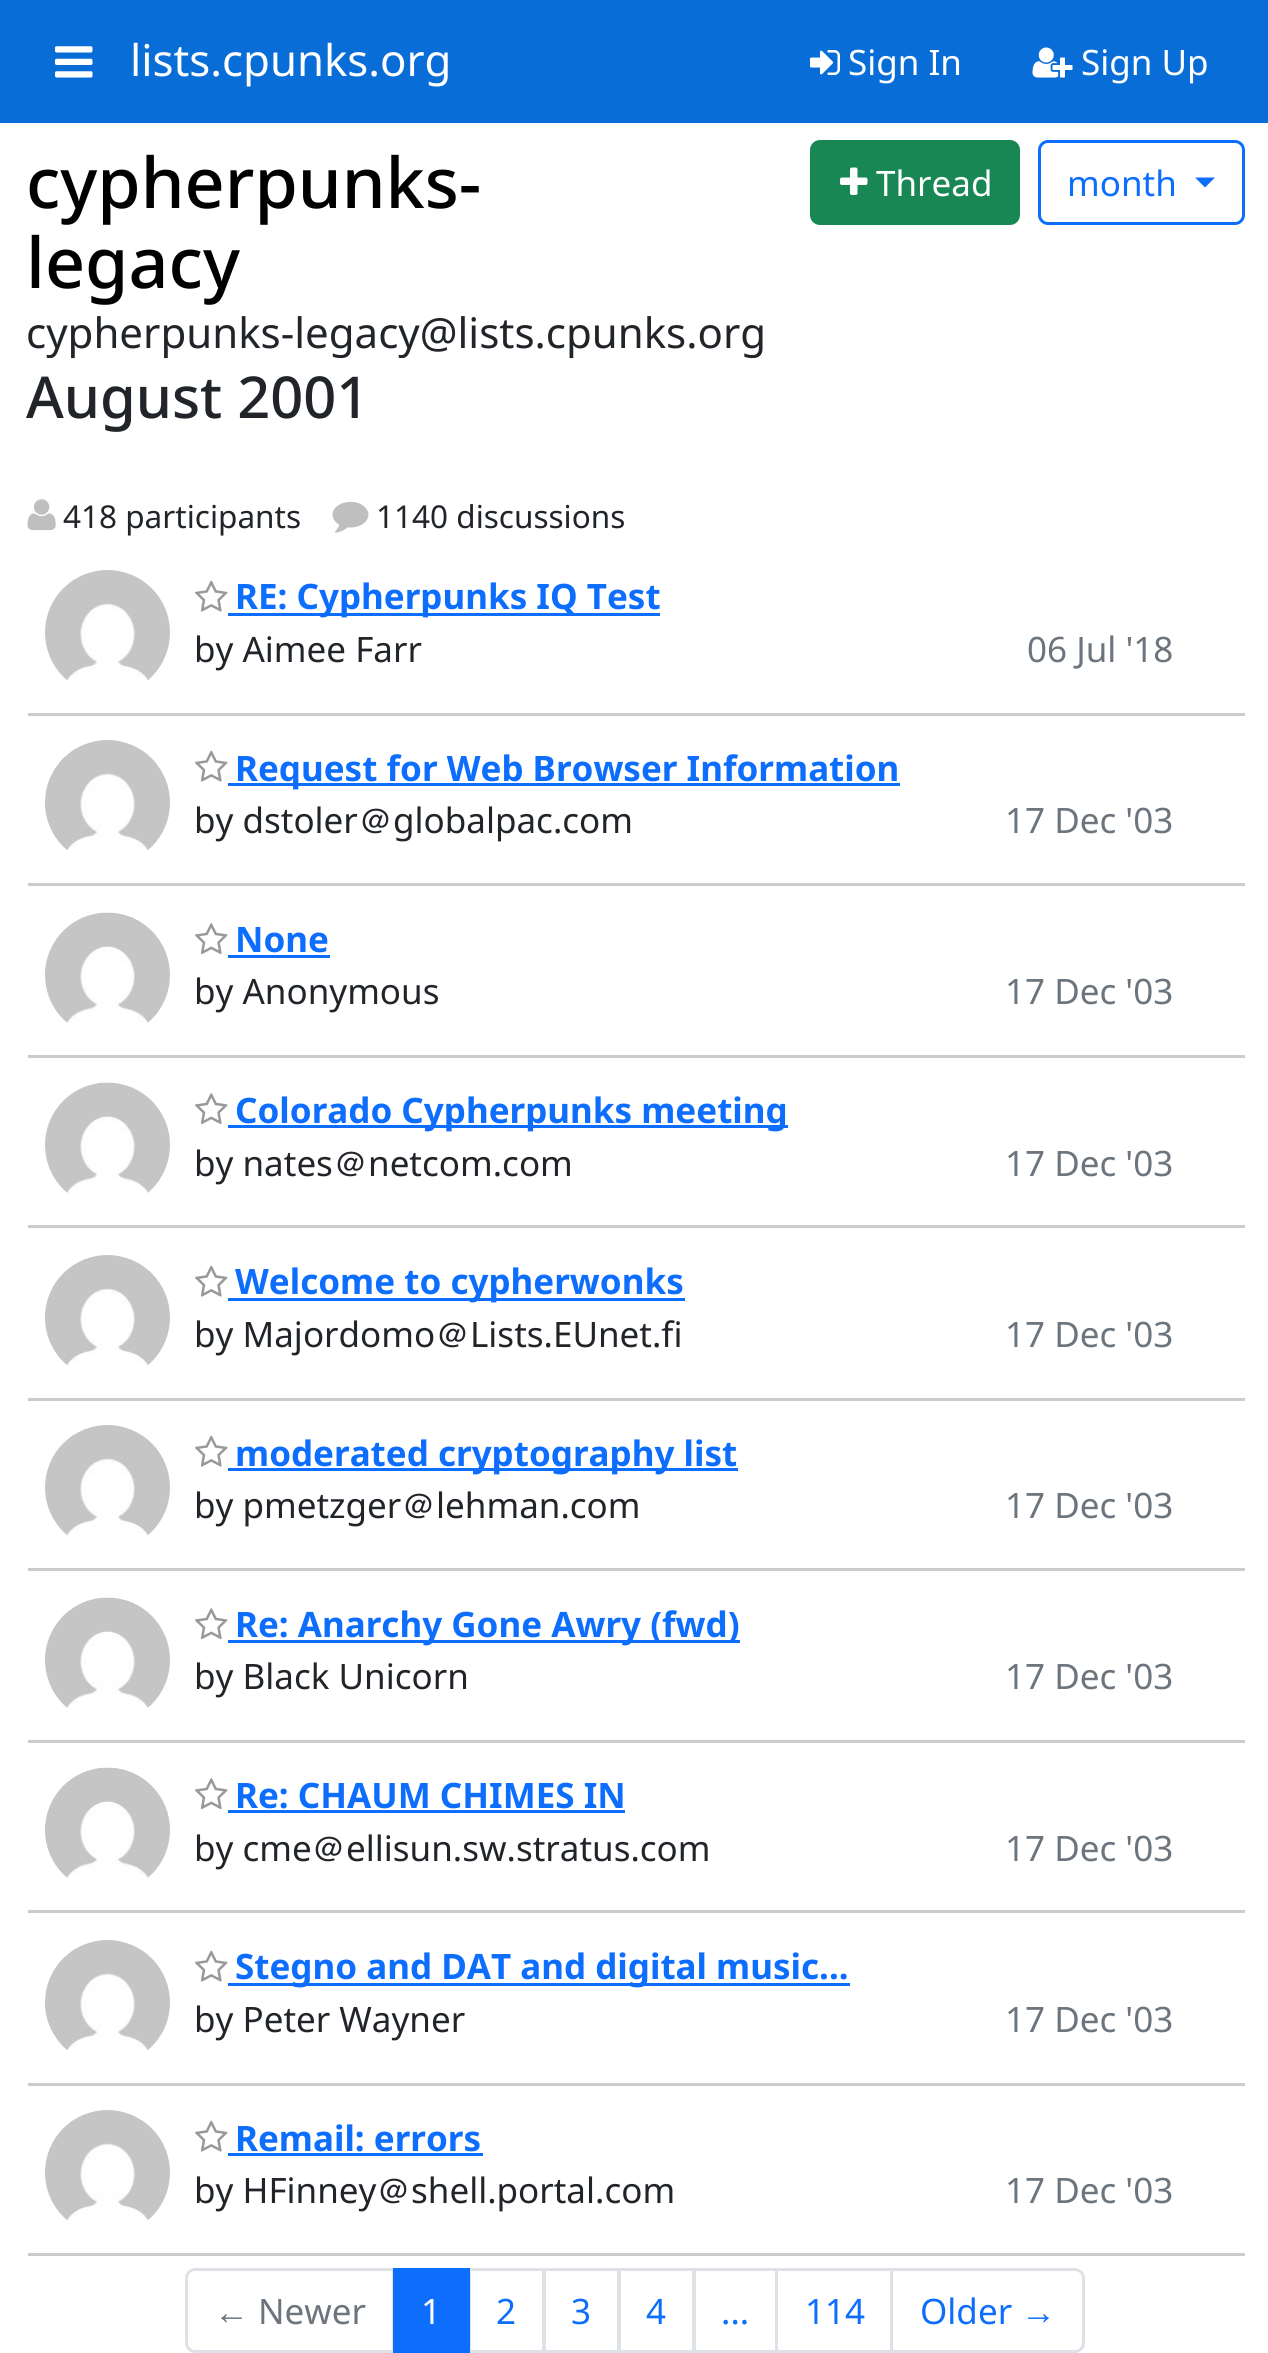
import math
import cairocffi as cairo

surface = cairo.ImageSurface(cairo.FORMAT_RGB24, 1268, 2353)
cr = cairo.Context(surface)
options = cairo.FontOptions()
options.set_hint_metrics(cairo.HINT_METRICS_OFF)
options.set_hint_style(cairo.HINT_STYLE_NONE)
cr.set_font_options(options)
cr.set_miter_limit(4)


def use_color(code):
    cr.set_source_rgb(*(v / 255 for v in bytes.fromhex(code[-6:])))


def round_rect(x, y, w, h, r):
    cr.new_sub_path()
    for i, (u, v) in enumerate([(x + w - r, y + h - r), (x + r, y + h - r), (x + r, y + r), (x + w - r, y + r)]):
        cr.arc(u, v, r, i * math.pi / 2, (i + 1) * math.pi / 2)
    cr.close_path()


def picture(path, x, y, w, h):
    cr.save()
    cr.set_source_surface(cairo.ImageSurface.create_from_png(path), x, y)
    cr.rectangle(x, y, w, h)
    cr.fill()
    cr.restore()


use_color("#ffffff")
cr.paint()
use_color("#086dd7")
cr.rectangle(0, 0, 1268, 123)
cr.fill()
picture("img1.png", 55, 46, 38, 32)
cr.select_font_face("Noto Sans")
cr.set_font_size(43.75)
use_color("#ffffff")
cr.move_to(130, 76)
cr.show_text("lists.cpunks.org")
picture("img2.png", 810, 50, 30, 25)
cr.set_font_size(35)
cr.move_to(848, 75)
cr.show_text("Sign In")
picture("img3.png", 1032, 47, 41, 31)
cr.move_to(1081, 75)
cr.show_text("Sign Up")
cr.select_font_face("Noto Sans Medium")
cr.set_font_size(70)
use_color("#000000")
cr.move_to(26, 208)
cr.show_text("cypherpunks-")
cr.move_to(26, 288)
cr.show_text("legacy")
use_color("#198754")
round_rect(811.5, 141.5, 207, 82, 8.5)
cr.fill_preserve()
cr.set_line_width(3)
cr.stroke()
picture("img4.png", 840, 167, 28, 28)
cr.select_font_face("Noto Sans")
cr.set_font_size(35)
use_color("#ffffff")
cr.move_to(876, 196)
cr.show_text("Thread")
round_rect(1039.5, 141.5, 204, 82, 8.5)
use_color("#0d6efd")
cr.stroke()
cr.move_to(1067, 196)
cr.show_text("month")
cr.new_path()
cr.move_to(1195, 177.5)
cr.line_to(1215, 177.5)
cr.line_to(1205, 187.5)
cr.close_path()
cr.fill()
cr.set_font_size(42)
use_color("#212529")
cr.move_to(26, 348)
cr.show_text("cypherpunks-legacy@lists.cpunks.org")
cr.select_font_face("Noto Sans Medium")
cr.set_font_size(57.75)
cr.move_to(26, 418)
cr.show_text("August 2001")
picture("img5.png", 27, 499, 29, 32)
cr.select_font_face("Noto Sans")
cr.set_font_size(31.5)
cr.move_to(63, 528)
cr.show_text("418 participants")
picture("img6.png", 332, 501, 37, 32)
cr.move_to(376, 528)
cr.show_text("1140 discussions")
use_color("#cccccc")
cr.rectangle(28, 713, 1217, 3)
cr.fill()
picture("img7.png", 45, 570, 125, 111)
picture("img8.png", 195, 580, 33, 32)
use_color("#0d6efd")
cr.rectangle(228, 613, 432, 3)
cr.fill()
cr.select_font_face("Noto Sans", cairo.FONT_SLANT_NORMAL, cairo.FONT_WEIGHT_BOLD)
cr.set_font_size(35)
cr.move_to(235, 609)
cr.show_text("RE: Cypherpunks IQ Test")
cr.select_font_face("Noto Sans")
use_color("#212529")
cr.move_to(194, 662)
cr.show_text("by Aimee Farr")
use_color("#6c757d")
cr.move_to(1027, 662)
cr.show_text("06 Jul '18")
use_color("#cccccc")
cr.rectangle(28, 883, 1217, 3)
cr.fill()
picture("img9.png", 45, 740, 125, 111)
picture("img8.png", 195, 750, 33, 32)
use_color("#0d6efd")
cr.rectangle(228, 783, 672, 3)
cr.fill()
cr.select_font_face("Noto Sans", cairo.FONT_SLANT_NORMAL, cairo.FONT_WEIGHT_BOLD)
cr.move_to(235, 781)
cr.show_text("Request for Web Browser Information")
cr.select_font_face("Noto Sans")
use_color("#212529")
cr.move_to(194, 833)
cr.show_text("by dstoler")
cr.select_font_face("WenQuanYi Zen Hei Medium")
cr.move_to(358, 833)
cr.show_text("＠")
cr.select_font_face("Noto Sans")
cr.move_to(393, 833)
cr.show_text("globalpac.com")
use_color("#6c757d")
cr.move_to(1005, 833)
cr.show_text("17 Dec '03")
use_color("#cccccc")
cr.rectangle(28, 1055, 1217, 3)
cr.fill()
picture("img10.png", 45, 912, 125, 111)
picture("img11.png", 195, 923, 33, 32)
cr.select_font_face("Noto Sans", cairo.FONT_SLANT_NORMAL, cairo.FONT_WEIGHT_BOLD)
use_color("#0d6efd")
cr.move_to(235, 952)
cr.show_text("None")
cr.rectangle(228, 955, 102, 3)
cr.fill()
cr.select_font_face("Noto Sans")
use_color("#212529")
cr.move_to(194, 1004)
cr.show_text("by Anonymous")
use_color("#6c757d")
cr.move_to(1005, 1004)
cr.show_text("17 Dec '03")
use_color("#cccccc")
cr.rectangle(28, 1225, 1217, 3)
cr.fill()
picture("img12.png", 45, 1082, 125, 111)
picture("img11.png", 195, 1093, 33, 32)
use_color("#0d6efd")
cr.rectangle(228, 1125, 560, 3)
cr.fill()
cr.select_font_face("Noto Sans", cairo.FONT_SLANT_NORMAL, cairo.FONT_WEIGHT_BOLD)
cr.move_to(235, 1123)
cr.show_text("Colorado Cypherpunks meeting")
cr.select_font_face("Noto Sans")
use_color("#212529")
cr.move_to(194, 1176)
cr.show_text("by nates")
cr.select_font_face("WenQuanYi Zen Hei Medium")
cr.move_to(333, 1176)
cr.show_text("＠")
cr.select_font_face("Noto Sans")
cr.move_to(368, 1176)
cr.show_text("netcom.com")
use_color("#6c757d")
cr.move_to(1005, 1176)
cr.show_text("17 Dec '03")
use_color("#cccccc")
cr.rectangle(28, 1398, 1217, 3)
cr.fill()
picture("img13.png", 45, 1255, 125, 111)
picture("img8.png", 195, 1265, 33, 32)
use_color("#0d6efd")
cr.rectangle(228, 1298, 457, 3)
cr.fill()
cr.select_font_face("Noto Sans", cairo.FONT_SLANT_NORMAL, cairo.FONT_WEIGHT_BOLD)
cr.move_to(235, 1294)
cr.show_text("Welcome to cypherwonks")
cr.select_font_face("Noto Sans")
use_color("#212529")
cr.move_to(194, 1347)
cr.show_text("by Majordomo")
cr.select_font_face("WenQuanYi Zen Hei Medium")
cr.move_to(435, 1347)
cr.show_text("＠")
cr.select_font_face("Noto Sans")
cr.move_to(470, 1347)
cr.show_text("Lists.EUnet.fi")
use_color("#6c757d")
cr.move_to(1005, 1347)
cr.show_text("17 Dec '03")
use_color("#cccccc")
cr.rectangle(28, 1568, 1217, 3)
cr.fill()
picture("img14.png", 45, 1425, 125, 111)
picture("img8.png", 195, 1435, 33, 32)
use_color("#0d6efd")
cr.rectangle(228, 1468, 510, 3)
cr.fill()
cr.select_font_face("Noto Sans", cairo.FONT_SLANT_NORMAL, cairo.FONT_WEIGHT_BOLD)
cr.move_to(235, 1466)
cr.show_text("moderated cryptography list")
cr.select_font_face("Noto Sans")
use_color("#212529")
cr.move_to(194, 1518)
cr.show_text("by pmetzger")
cr.select_font_face("WenQuanYi Zen Hei Medium")
cr.move_to(401, 1518)
cr.show_text("＠")
cr.select_font_face("Noto Sans")
cr.move_to(436, 1518)
cr.show_text("lehman.com")
use_color("#6c757d")
cr.move_to(1005, 1518)
cr.show_text("17 Dec '03")
use_color("#cccccc")
cr.rectangle(28, 1740, 1217, 3)
cr.fill()
picture("img12.png", 45, 1597, 125, 111)
picture("img11.png", 195, 1608, 33, 32)
use_color("#0d6efd")
cr.rectangle(228, 1640, 512, 3)
cr.fill()
cr.select_font_face("Noto Sans", cairo.FONT_SLANT_NORMAL, cairo.FONT_WEIGHT_BOLD)
cr.move_to(235, 1637)
cr.show_text("Re: Anarchy Gone Awry (fwd)")
cr.select_font_face("Noto Sans")
use_color("#212529")
cr.move_to(194, 1689)
cr.show_text("by Black Unicorn")
use_color("#6c757d")
cr.move_to(1005, 1689)
cr.show_text("17 Dec '03")
use_color("#cccccc")
cr.rectangle(28, 1910, 1217, 3)
cr.fill()
picture("img15.png", 45, 1767, 125, 111)
picture("img11.png", 195, 1778, 33, 32)
cr.select_font_face("Noto Sans", cairo.FONT_SLANT_NORMAL, cairo.FONT_WEIGHT_BOLD)
use_color("#0d6efd")
cr.move_to(235, 1808)
cr.show_text("Re: CHAUM CHIMES IN")
cr.rectangle(228, 1810, 397, 3)
cr.fill()
cr.select_font_face("Noto Sans")
use_color("#212529")
cr.move_to(194, 1861)
cr.show_text("by cme")
cr.select_font_face("WenQuanYi Zen Hei Medium")
cr.move_to(311, 1861)
cr.show_text("＠")
cr.select_font_face("Noto Sans")
cr.move_to(346, 1861)
cr.show_text("ellisun.sw.stratus.com")
use_color("#6c757d")
cr.move_to(1005, 1861)
cr.show_text("17 Dec '03")
use_color("#cccccc")
cr.rectangle(28, 2083, 1217, 3)
cr.fill()
picture("img16.png", 45, 1940, 125, 111)
picture("img8.png", 195, 1950, 33, 32)
use_color("#0d6efd")
cr.rectangle(228, 1983, 622, 3)
cr.fill()
cr.select_font_face("Noto Sans", cairo.FONT_SLANT_NORMAL, cairo.FONT_WEIGHT_BOLD)
cr.move_to(235, 1979)
cr.show_text("Stegno and DAT and digital music...")
cr.select_font_face("Noto Sans")
use_color("#212529")
cr.move_to(194, 2032)
cr.show_text("by Peter Wayner")
use_color("#6c757d")
cr.move_to(1005, 2032)
cr.show_text("17 Dec '03")
use_color("#cccccc")
cr.rectangle(28, 2253, 1217, 3)
cr.fill()
picture("img7.png", 45, 2110, 125, 111)
picture("img8.png", 195, 2120, 33, 32)
cr.select_font_face("Noto Sans", cairo.FONT_SLANT_NORMAL, cairo.FONT_WEIGHT_BOLD)
use_color("#0d6efd")
cr.move_to(235, 2151)
cr.show_text("Remail: errors")
cr.rectangle(228, 2153, 255, 3)
cr.fill()
cr.select_font_face("Noto Sans")
use_color("#212529")
cr.move_to(194, 2203)
cr.show_text("by HFinney")
cr.select_font_face("WenQuanYi Zen Hei Medium")
cr.move_to(376, 2203)
cr.show_text("＠")
cr.select_font_face("Noto Sans")
cr.move_to(411, 2203)
cr.show_text("shell.portal.com")
use_color("#6c757d")
cr.move_to(1005, 2203)
cr.show_text("17 Dec '03")
cr.new_path()
cr.move_to(195, 2269.5)
cr.line_to(393.5, 2269.5)
cr.line_to(393.5, 2351.5)
cr.line_to(195, 2351.5)
cr.curve_to(190.5, 2351.5, 186.5, 2347.5, 186.5, 2343)
cr.line_to(186.5, 2278)
cr.curve_to(186.5, 2273.5, 190.5, 2269.5, 195, 2269.5)
cr.close_path()
use_color("#dee2e6")
cr.stroke()
cr.select_font_face("Liberation Sans")
use_color("#6c757d")
cr.move_to(214, 2324)
cr.show_text("←")
cr.select_font_face("Noto Sans")
cr.move_to(258, 2324)
cr.show_text("Newer")
cr.rectangle(469.5, 2269.5, 74, 82)
use_color("#dee2e6")
cr.stroke()
use_color("#0d6efd")
cr.rectangle(393, 2268, 77, 85)
cr.fill()
use_color("#ffffff")
cr.move_to(421, 2324)
cr.show_text("1")
use_color("#0d6efd")
cr.move_to(496, 2324)
cr.show_text("2")
cr.rectangle(544.5, 2269.5, 74, 82)
use_color("#dee2e6")
cr.stroke()
use_color("#0d6efd")
cr.move_to(571, 2324)
cr.show_text("3")
cr.rectangle(619.5, 2269.5, 74, 82)
use_color("#dee2e6")
cr.stroke()
use_color("#0d6efd")
cr.move_to(646, 2324)
cr.show_text("4")
cr.rectangle(694.5, 2269.5, 82, 82)
use_color("#dee2e6")
cr.stroke()
use_color("#0d6efd")
cr.move_to(721, 2324)
cr.show_text("...")
cr.rectangle(776.5, 2269.5, 115, 82)
use_color("#dee2e6")
cr.stroke()
use_color("#0d6efd")
cr.move_to(805, 2324)
cr.show_text("114")
use_color("#ffffff")
cr.new_path()
cr.move_to(891.5, 2269.5)
cr.line_to(1075, 2269.5)
cr.curve_to(1079.5, 2269.5, 1083.5, 2273.5, 1083.5, 2278)
cr.line_to(1083.5, 2343)
cr.curve_to(1083.5, 2347.5, 1079.5, 2351.5, 1075, 2351.5)
cr.line_to(891.5, 2351.5)
cr.close_path()
cr.fill_preserve()
use_color("#dee2e6")
cr.stroke()
use_color("#0d6efd")
cr.move_to(920, 2324)
cr.show_text("Older")
cr.select_font_face("Liberation Sans")
cr.move_to(1021, 2324)
cr.show_text("→")
surface.write_to_png("result.png")
